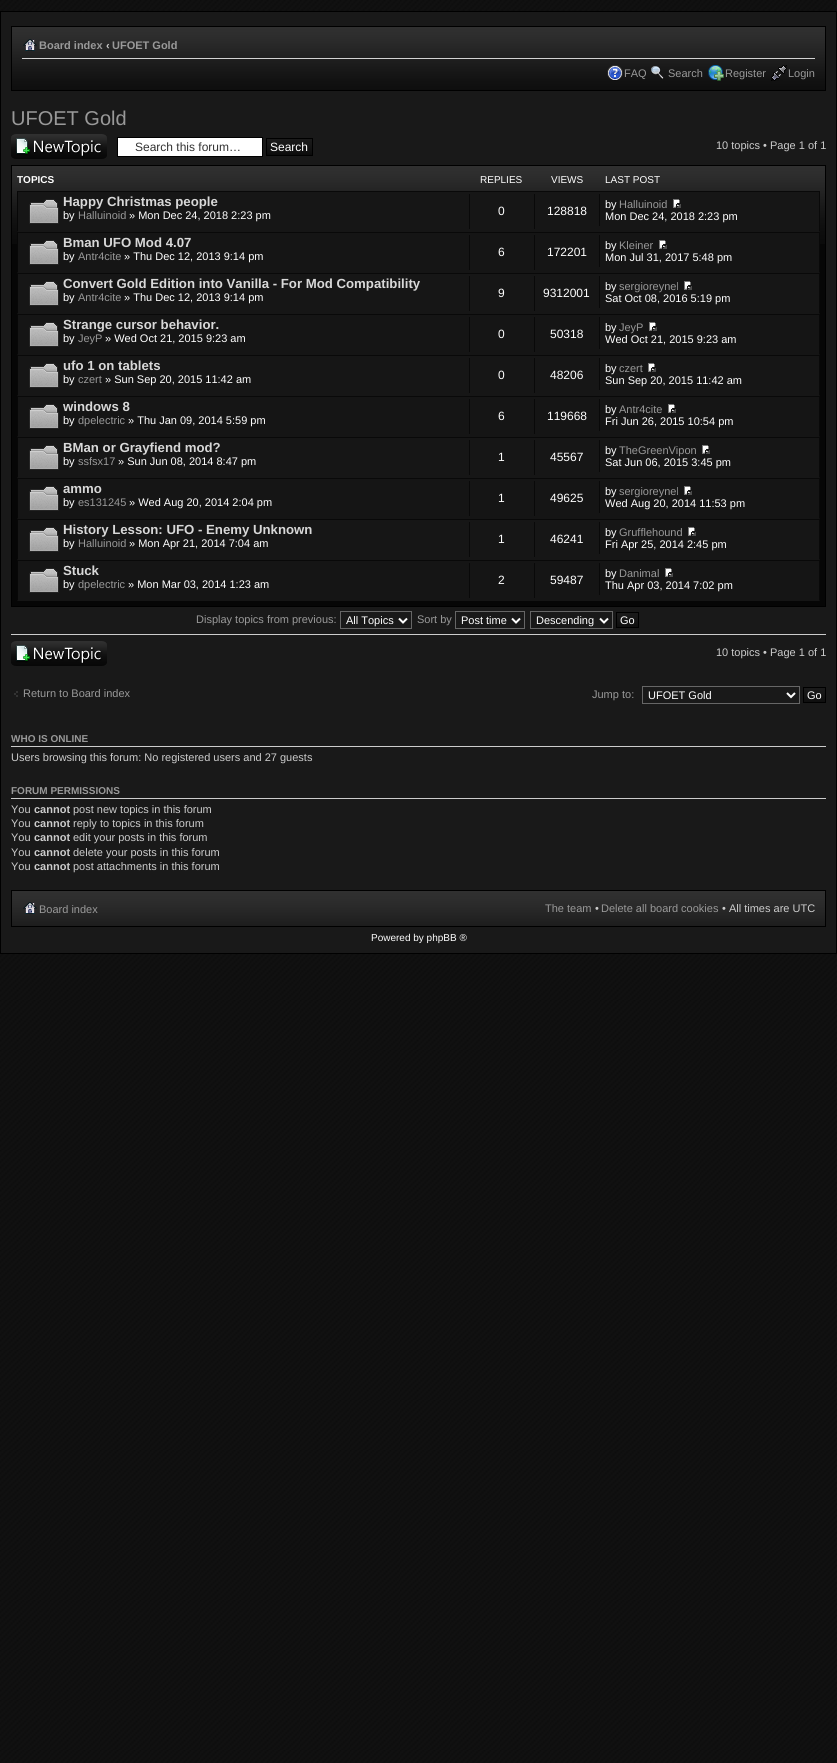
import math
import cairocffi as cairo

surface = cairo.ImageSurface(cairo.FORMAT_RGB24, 837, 1763)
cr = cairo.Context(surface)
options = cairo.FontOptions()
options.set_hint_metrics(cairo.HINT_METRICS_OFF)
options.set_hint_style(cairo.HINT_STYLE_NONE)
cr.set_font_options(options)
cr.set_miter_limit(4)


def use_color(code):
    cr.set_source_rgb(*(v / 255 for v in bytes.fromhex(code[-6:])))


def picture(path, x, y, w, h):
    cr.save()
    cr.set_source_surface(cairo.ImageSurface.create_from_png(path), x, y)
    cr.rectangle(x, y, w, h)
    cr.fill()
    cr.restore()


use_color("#ffffff")
cr.paint()
picture("img1.png", 0, 0, 837, 1763)
use_color("#191919")
cr.rectangle(0.5, 11.5, 836, 942)
cr.fill_preserve()
use_color("#000000")
cr.set_line_width(1)
cr.stroke()
picture("img2.png", 12, 27, 813, 63)
cr.rectangle(11.5, 26.5, 814, 64)
cr.stroke()
use_color("#d2d2d2")
cr.rectangle(22, 58, 793, 1)
cr.fill()
picture("img3.png", 23, 39, 14, 12)
cr.select_font_face("Liberation Sans", cairo.FONT_SLANT_NORMAL, cairo.FONT_WEIGHT_BOLD)
cr.set_font_size(11)
use_color("#999999")
cr.move_to(39, 49)
cr.show_text("Board index")
use_color("#cccccc")
cr.move_to(106, 49)
cr.show_text("‹")
use_color("#999999")
cr.move_to(112, 49)
cr.show_text("UFOET Gold")
picture("img4.png", 607, 65, 16, 16)
cr.select_font_face("Liberation Sans")
cr.move_to(624, 77)
cr.show_text("FAQ")
picture("img5.png", 651, 66, 13, 13)
cr.move_to(668, 77)
cr.show_text("Search")
picture("img6.png", 708, 65, 16, 16)
cr.move_to(725, 77)
cr.show_text("Register")
picture("img7.png", 771, 65, 16, 16)
cr.move_to(788, 77)
cr.show_text("Login")
cr.set_font_size(20)
cr.move_to(11, 125)
cr.show_text("UFOET Gold")
picture("img8.png", 11, 134, 96, 25)
use_color("#ffffff")
cr.rectangle(117.5, 137.5, 145, 19)
cr.fill_preserve()
use_color("#000000")
cr.stroke()
cr.set_font_size(12)
use_color("#333333")
cr.move_to(135, 151)
cr.show_text("Search this forum…")
picture("img9.png", 267, 139, 45, 16)
cr.rectangle(266.5, 138.5, 46, 17)
use_color("#000000")
cr.stroke()
use_color("#ffffff")
cr.move_to(270, 151)
cr.show_text("Search")
cr.set_font_size(11)
use_color("#cccccc")
cr.move_to(716, 149)
cr.show_text("10 topics • Page 1 of 1")
use_color("#060606")
cr.rectangle(12, 244, 813, 362)
cr.fill()
picture("img10.png", 12, 166, 813, 78)
cr.rectangle(11.5, 165.5, 814, 441)
use_color("#000000")
cr.stroke()
cr.select_font_face("Liberation Sans", cairo.FONT_SLANT_NORMAL, cairo.FONT_WEIGHT_BOLD)
cr.set_font_size(10)
use_color("#ffffff")
cr.move_to(17, 183)
cr.show_text("TOPICS")
cr.select_font_face("Liberation Sans")
cr.move_to(480, 183)
cr.show_text("REPLIES")
cr.move_to(551, 183)
cr.show_text("VIEWS")
cr.move_to(605, 183)
cr.show_text("LAST POST")
use_color("#161616")
cr.rectangle(17, 192, 803, 40)
cr.fill()
use_color("#090909")
cr.rectangle(17, 191, 803, 1)
cr.fill()
cr.new_path()
cr.move_to(820, 191)
cr.line_to(820, 232)
cr.line_to(819, 231)
cr.line_to(819, 192)
cr.close_path()
cr.fill()
use_color("#070707")
cr.new_path()
cr.move_to(17, 232)
cr.line_to(17, 191)
cr.line_to(18, 192)
cr.line_to(18, 231)
cr.close_path()
cr.fill()
picture("img11.png", 29, 199, 30, 25)
cr.select_font_face("Liberation Sans", cairo.FONT_SLANT_NORMAL, cairo.FONT_WEIGHT_BOLD)
cr.set_font_size(13.2)
use_color("#d8d8d8")
cr.move_to(63, 206)
cr.show_text("Happy Christmas people")
cr.select_font_face("Liberation Sans")
cr.set_font_size(11)
use_color("#ffffff")
cr.move_to(63, 219)
cr.show_text("by")
use_color("#999999")
cr.move_to(78, 219)
cr.show_text("Halluinoid")
use_color("#ffffff")
cr.move_to(129, 219)
cr.show_text("» Mon Dec 24, 2018 2:23 pm")
use_color("#090909")
cr.rectangle(469, 194, 1, 35)
cr.fill()
cr.set_font_size(12)
use_color("#ffffff")
cr.move_to(498, 215)
cr.show_text("0")
use_color("#090909")
cr.rectangle(534, 194, 1, 35)
cr.fill()
use_color("#ffffff")
cr.move_to(547, 215)
cr.show_text("128818")
use_color("#090909")
cr.rectangle(599, 194, 1, 32)
cr.fill()
cr.set_font_size(11)
use_color("#ffffff")
cr.move_to(605, 208)
cr.show_text("by")
use_color("#999999")
cr.move_to(619, 208)
cr.show_text("Halluinoid")
picture("img12.png", 673, 199, 8, 9)
use_color("#ffffff")
cr.move_to(605, 220)
cr.show_text("Mon Dec 24, 2018 2:23 pm")
use_color("#151515")
cr.rectangle(17, 233, 803, 40)
cr.fill()
use_color("#090909")
cr.rectangle(17, 232, 803, 1)
cr.fill()
cr.new_path()
cr.move_to(820, 232)
cr.line_to(820, 273)
cr.line_to(819, 272)
cr.line_to(819, 233)
cr.close_path()
cr.fill()
use_color("#070707")
cr.new_path()
cr.move_to(17, 273)
cr.line_to(17, 232)
cr.line_to(18, 233)
cr.line_to(18, 272)
cr.close_path()
cr.fill()
picture("img13.png", 29, 240, 30, 25)
cr.select_font_face("Liberation Sans", cairo.FONT_SLANT_NORMAL, cairo.FONT_WEIGHT_BOLD)
cr.set_font_size(13.2)
use_color("#d8d8d8")
cr.move_to(63, 247)
cr.show_text("Bman UFO Mod 4.07")
cr.select_font_face("Liberation Sans")
cr.set_font_size(11)
use_color("#ffffff")
cr.move_to(63, 260)
cr.show_text("by")
use_color("#999999")
cr.move_to(78, 260)
cr.show_text("Antr4cite")
use_color("#ffffff")
cr.move_to(124, 260)
cr.show_text("» Thu Dec 12, 2013 9:14 pm")
use_color("#090909")
cr.rectangle(469, 235, 1, 35)
cr.fill()
cr.set_font_size(12)
use_color("#ffffff")
cr.move_to(498, 256)
cr.show_text("6")
use_color("#090909")
cr.rectangle(534, 235, 1, 35)
cr.fill()
use_color("#ffffff")
cr.move_to(547, 256)
cr.show_text("172201")
use_color("#090909")
cr.rectangle(599, 235, 1, 32)
cr.fill()
cr.set_font_size(11)
use_color("#ffffff")
cr.move_to(605, 249)
cr.show_text("by")
use_color("#999999")
cr.move_to(619, 249)
cr.show_text("Kleiner")
picture("img14.png", 659, 240, 8, 9)
use_color("#ffffff")
cr.move_to(605, 261)
cr.show_text("Mon Jul 31, 2017 5:48 pm")
use_color("#161616")
cr.rectangle(17, 274, 803, 40)
cr.fill()
use_color("#090909")
cr.rectangle(17, 273, 803, 1)
cr.fill()
cr.new_path()
cr.move_to(820, 273)
cr.line_to(820, 314)
cr.line_to(819, 313)
cr.line_to(819, 274)
cr.close_path()
cr.fill()
use_color("#070707")
cr.new_path()
cr.move_to(17, 314)
cr.line_to(17, 273)
cr.line_to(18, 274)
cr.line_to(18, 313)
cr.close_path()
cr.fill()
picture("img11.png", 29, 281, 30, 25)
cr.select_font_face("Liberation Sans", cairo.FONT_SLANT_NORMAL, cairo.FONT_WEIGHT_BOLD)
cr.set_font_size(13.2)
use_color("#d8d8d8")
cr.move_to(63, 288)
cr.show_text("Convert Gold Edition into Vanilla - For Mod Compatibility")
cr.select_font_face("Liberation Sans")
cr.set_font_size(11)
use_color("#ffffff")
cr.move_to(63, 301)
cr.show_text("by")
use_color("#999999")
cr.move_to(78, 301)
cr.show_text("Antr4cite")
use_color("#ffffff")
cr.move_to(124, 301)
cr.show_text("» Thu Dec 12, 2013 9:14 pm")
use_color("#090909")
cr.rectangle(469, 276, 1, 35)
cr.fill()
cr.set_font_size(12)
use_color("#ffffff")
cr.move_to(498, 297)
cr.show_text("9")
use_color("#090909")
cr.rectangle(534, 276, 1, 35)
cr.fill()
use_color("#ffffff")
cr.move_to(543, 297)
cr.show_text("9312001")
use_color("#090909")
cr.rectangle(599, 276, 1, 32)
cr.fill()
cr.set_font_size(11)
use_color("#ffffff")
cr.move_to(605, 290)
cr.show_text("by")
use_color("#999999")
cr.move_to(619, 290)
cr.show_text("sergioreynel")
picture("img12.png", 684, 281, 8, 9)
use_color("#ffffff")
cr.move_to(605, 302)
cr.show_text("Sat Oct 08, 2016 5:19 pm")
use_color("#151515")
cr.rectangle(17, 315, 803, 40)
cr.fill()
use_color("#090909")
cr.rectangle(17, 314, 803, 1)
cr.fill()
cr.new_path()
cr.move_to(820, 314)
cr.line_to(820, 355)
cr.line_to(819, 354)
cr.line_to(819, 315)
cr.close_path()
cr.fill()
use_color("#070707")
cr.new_path()
cr.move_to(17, 355)
cr.line_to(17, 314)
cr.line_to(18, 315)
cr.line_to(18, 354)
cr.close_path()
cr.fill()
picture("img13.png", 29, 322, 30, 25)
cr.select_font_face("Liberation Sans", cairo.FONT_SLANT_NORMAL, cairo.FONT_WEIGHT_BOLD)
cr.set_font_size(13.2)
use_color("#d8d8d8")
cr.move_to(63, 329)
cr.show_text("Strange cursor behavior.")
cr.select_font_face("Liberation Sans")
cr.set_font_size(11)
use_color("#ffffff")
cr.move_to(63, 342)
cr.show_text("by")
use_color("#999999")
cr.move_to(78, 342)
cr.show_text("JeyP")
use_color("#ffffff")
cr.move_to(105, 342)
cr.show_text("» Wed Oct 21, 2015 9:23 am")
use_color("#090909")
cr.rectangle(469, 317, 1, 35)
cr.fill()
cr.set_font_size(12)
use_color("#ffffff")
cr.move_to(498, 338)
cr.show_text("0")
use_color("#090909")
cr.rectangle(534, 317, 1, 35)
cr.fill()
use_color("#ffffff")
cr.move_to(550, 338)
cr.show_text("50318")
use_color("#090909")
cr.rectangle(599, 317, 1, 32)
cr.fill()
cr.set_font_size(11)
use_color("#ffffff")
cr.move_to(605, 331)
cr.show_text("by")
use_color("#999999")
cr.move_to(619, 331)
cr.show_text("JeyP")
picture("img14.png", 649, 322, 8, 9)
use_color("#ffffff")
cr.move_to(605, 343)
cr.show_text("Wed Oct 21, 2015 9:23 am")
use_color("#161616")
cr.rectangle(17, 356, 803, 40)
cr.fill()
use_color("#090909")
cr.rectangle(17, 355, 803, 1)
cr.fill()
cr.new_path()
cr.move_to(820, 355)
cr.line_to(820, 396)
cr.line_to(819, 395)
cr.line_to(819, 356)
cr.close_path()
cr.fill()
use_color("#070707")
cr.new_path()
cr.move_to(17, 396)
cr.line_to(17, 355)
cr.line_to(18, 356)
cr.line_to(18, 395)
cr.close_path()
cr.fill()
picture("img11.png", 29, 363, 30, 25)
cr.select_font_face("Liberation Sans", cairo.FONT_SLANT_NORMAL, cairo.FONT_WEIGHT_BOLD)
cr.set_font_size(13.2)
use_color("#d8d8d8")
cr.move_to(63, 370)
cr.show_text("ufo 1 on tablets")
cr.select_font_face("Liberation Sans")
cr.set_font_size(11)
use_color("#ffffff")
cr.move_to(63, 383)
cr.show_text("by")
use_color("#999999")
cr.move_to(78, 383)
cr.show_text("czert")
use_color("#ffffff")
cr.move_to(105, 383)
cr.show_text("» Sun Sep 20, 2015 11:42 am")
use_color("#090909")
cr.rectangle(469, 358, 1, 35)
cr.fill()
cr.set_font_size(12)
use_color("#ffffff")
cr.move_to(498, 379)
cr.show_text("0")
use_color("#090909")
cr.rectangle(534, 358, 1, 35)
cr.fill()
use_color("#ffffff")
cr.move_to(550, 379)
cr.show_text("48206")
use_color("#090909")
cr.rectangle(599, 358, 1, 32)
cr.fill()
cr.set_font_size(11)
use_color("#ffffff")
cr.move_to(605, 372)
cr.show_text("by")
use_color("#999999")
cr.move_to(619, 372)
cr.show_text("czert")
picture("img12.png", 648, 363, 8, 9)
use_color("#ffffff")
cr.move_to(605, 384)
cr.show_text("Sun Sep 20, 2015 11:42 am")
use_color("#151515")
cr.rectangle(17, 397, 803, 40)
cr.fill()
use_color("#090909")
cr.rectangle(17, 396, 803, 1)
cr.fill()
cr.new_path()
cr.move_to(820, 396)
cr.line_to(820, 437)
cr.line_to(819, 436)
cr.line_to(819, 397)
cr.close_path()
cr.fill()
use_color("#070707")
cr.new_path()
cr.move_to(17, 437)
cr.line_to(17, 396)
cr.line_to(18, 397)
cr.line_to(18, 436)
cr.close_path()
cr.fill()
picture("img13.png", 29, 404, 30, 25)
cr.select_font_face("Liberation Sans", cairo.FONT_SLANT_NORMAL, cairo.FONT_WEIGHT_BOLD)
cr.set_font_size(13.2)
use_color("#d8d8d8")
cr.move_to(63, 411)
cr.show_text("windows 8")
cr.select_font_face("Liberation Sans")
cr.set_font_size(11)
use_color("#ffffff")
cr.move_to(63, 424)
cr.show_text("by")
use_color("#999999")
cr.move_to(78, 424)
cr.show_text("dpelectric")
use_color("#ffffff")
cr.move_to(128, 424)
cr.show_text("» Thu Jan 09, 2014 5:59 pm")
use_color("#090909")
cr.rectangle(469, 399, 1, 35)
cr.fill()
cr.set_font_size(12)
use_color("#ffffff")
cr.move_to(498, 420)
cr.show_text("6")
use_color("#090909")
cr.rectangle(534, 399, 1, 35)
cr.fill()
use_color("#ffffff")
cr.move_to(547, 420)
cr.show_text("119668")
use_color("#090909")
cr.rectangle(599, 399, 1, 32)
cr.fill()
cr.set_font_size(11)
use_color("#ffffff")
cr.move_to(605, 413)
cr.show_text("by")
use_color("#999999")
cr.move_to(619, 413)
cr.show_text("Antr4cite")
picture("img14.png", 668, 404, 8, 9)
use_color("#ffffff")
cr.move_to(605, 425)
cr.show_text("Fri Jun 26, 2015 10:54 pm")
use_color("#161616")
cr.rectangle(17, 438, 803, 40)
cr.fill()
use_color("#090909")
cr.rectangle(17, 437, 803, 1)
cr.fill()
cr.new_path()
cr.move_to(820, 437)
cr.line_to(820, 478)
cr.line_to(819, 477)
cr.line_to(819, 438)
cr.close_path()
cr.fill()
use_color("#070707")
cr.new_path()
cr.move_to(17, 478)
cr.line_to(17, 437)
cr.line_to(18, 438)
cr.line_to(18, 477)
cr.close_path()
cr.fill()
picture("img11.png", 29, 445, 30, 25)
cr.select_font_face("Liberation Sans", cairo.FONT_SLANT_NORMAL, cairo.FONT_WEIGHT_BOLD)
cr.set_font_size(13.2)
use_color("#d8d8d8")
cr.move_to(63, 452)
cr.show_text("BMan or Grayfiend mod?")
cr.select_font_face("Liberation Sans")
cr.set_font_size(11)
use_color("#ffffff")
cr.move_to(63, 465)
cr.show_text("by")
use_color("#999999")
cr.move_to(78, 465)
cr.show_text("ssfsx17")
use_color("#ffffff")
cr.move_to(118, 465)
cr.show_text("» Sun Jun 08, 2014 8:47 pm")
use_color("#090909")
cr.rectangle(469, 440, 1, 35)
cr.fill()
cr.set_font_size(12)
use_color("#ffffff")
cr.move_to(498, 461)
cr.show_text("1")
use_color("#090909")
cr.rectangle(534, 440, 1, 35)
cr.fill()
use_color("#ffffff")
cr.move_to(550, 461)
cr.show_text("45567")
use_color("#090909")
cr.rectangle(599, 440, 1, 32)
cr.fill()
cr.set_font_size(11)
use_color("#ffffff")
cr.move_to(605, 454)
cr.show_text("by")
use_color("#999999")
cr.move_to(619, 454)
cr.show_text("TheGreenVipon")
picture("img12.png", 702, 445, 8, 9)
use_color("#ffffff")
cr.move_to(605, 466)
cr.show_text("Sat Jun 06, 2015 3:45 pm")
use_color("#151515")
cr.rectangle(17, 479, 803, 40)
cr.fill()
use_color("#090909")
cr.rectangle(17, 478, 803, 1)
cr.fill()
cr.new_path()
cr.move_to(820, 478)
cr.line_to(820, 519)
cr.line_to(819, 518)
cr.line_to(819, 479)
cr.close_path()
cr.fill()
use_color("#070707")
cr.new_path()
cr.move_to(17, 519)
cr.line_to(17, 478)
cr.line_to(18, 479)
cr.line_to(18, 518)
cr.close_path()
cr.fill()
picture("img13.png", 29, 486, 30, 25)
cr.select_font_face("Liberation Sans", cairo.FONT_SLANT_NORMAL, cairo.FONT_WEIGHT_BOLD)
cr.set_font_size(13.2)
use_color("#d8d8d8")
cr.move_to(63, 493)
cr.show_text("ammo")
cr.select_font_face("Liberation Sans")
cr.set_font_size(11)
use_color("#ffffff")
cr.move_to(63, 506)
cr.show_text("by")
use_color("#999999")
cr.move_to(78, 506)
cr.show_text("es131245")
use_color("#ffffff")
cr.move_to(129, 506)
cr.show_text("» Wed Aug 20, 2014 2:04 pm")
use_color("#090909")
cr.rectangle(469, 481, 1, 35)
cr.fill()
cr.set_font_size(12)
use_color("#ffffff")
cr.move_to(498, 502)
cr.show_text("1")
use_color("#090909")
cr.rectangle(534, 481, 1, 35)
cr.fill()
use_color("#ffffff")
cr.move_to(550, 502)
cr.show_text("49625")
use_color("#090909")
cr.rectangle(599, 481, 1, 32)
cr.fill()
cr.set_font_size(11)
use_color("#ffffff")
cr.move_to(605, 495)
cr.show_text("by")
use_color("#999999")
cr.move_to(619, 495)
cr.show_text("sergioreynel")
picture("img14.png", 684, 486, 8, 9)
use_color("#ffffff")
cr.move_to(605, 507)
cr.show_text("Wed Aug 20, 2014 11:53 pm")
use_color("#161616")
cr.rectangle(17, 520, 803, 40)
cr.fill()
use_color("#090909")
cr.rectangle(17, 519, 803, 1)
cr.fill()
cr.new_path()
cr.move_to(820, 519)
cr.line_to(820, 560)
cr.line_to(819, 559)
cr.line_to(819, 520)
cr.close_path()
cr.fill()
use_color("#070707")
cr.new_path()
cr.move_to(17, 560)
cr.line_to(17, 519)
cr.line_to(18, 520)
cr.line_to(18, 559)
cr.close_path()
cr.fill()
picture("img11.png", 29, 527, 30, 25)
cr.select_font_face("Liberation Sans", cairo.FONT_SLANT_NORMAL, cairo.FONT_WEIGHT_BOLD)
cr.set_font_size(13.2)
use_color("#d8d8d8")
cr.move_to(63, 534)
cr.show_text("History Lesson: UFO - Enemy Unknown")
cr.select_font_face("Liberation Sans")
cr.set_font_size(11)
use_color("#ffffff")
cr.move_to(63, 547)
cr.show_text("by")
use_color("#999999")
cr.move_to(78, 547)
cr.show_text("Halluinoid")
use_color("#ffffff")
cr.move_to(129, 547)
cr.show_text("» Mon Apr 21, 2014 7:04 am")
use_color("#090909")
cr.rectangle(469, 522, 1, 35)
cr.fill()
cr.set_font_size(12)
use_color("#ffffff")
cr.move_to(498, 543)
cr.show_text("1")
use_color("#090909")
cr.rectangle(534, 522, 1, 35)
cr.fill()
use_color("#ffffff")
cr.move_to(550, 543)
cr.show_text("46241")
use_color("#090909")
cr.rectangle(599, 522, 1, 32)
cr.fill()
cr.set_font_size(11)
use_color("#ffffff")
cr.move_to(605, 536)
cr.show_text("by")
use_color("#999999")
cr.move_to(619, 536)
cr.show_text("Grufflehound")
picture("img12.png", 688, 527, 8, 9)
use_color("#ffffff")
cr.move_to(605, 548)
cr.show_text("Fri Apr 25, 2014 2:45 pm")
use_color("#151515")
cr.rectangle(17, 561, 803, 40)
cr.fill()
use_color("#090909")
cr.rectangle(17, 560, 803, 1)
cr.fill()
cr.new_path()
cr.move_to(820, 560)
cr.line_to(820, 601)
cr.line_to(819, 600)
cr.line_to(819, 561)
cr.close_path()
cr.fill()
use_color("#070707")
cr.new_path()
cr.move_to(17, 601)
cr.line_to(17, 560)
cr.line_to(18, 561)
cr.line_to(18, 600)
cr.close_path()
cr.fill()
picture("img13.png", 29, 568, 30, 25)
cr.select_font_face("Liberation Sans", cairo.FONT_SLANT_NORMAL, cairo.FONT_WEIGHT_BOLD)
cr.set_font_size(13.2)
use_color("#d8d8d8")
cr.move_to(63, 575)
cr.show_text("Stuck")
cr.select_font_face("Liberation Sans")
cr.set_font_size(11)
use_color("#ffffff")
cr.move_to(63, 588)
cr.show_text("by")
use_color("#999999")
cr.move_to(78, 588)
cr.show_text("dpelectric")
use_color("#ffffff")
cr.move_to(128, 588)
cr.show_text("» Mon Mar 03, 2014 1:23 am")
use_color("#090909")
cr.rectangle(469, 563, 1, 35)
cr.fill()
cr.set_font_size(12)
use_color("#ffffff")
cr.move_to(498, 584)
cr.show_text("2")
use_color("#090909")
cr.rectangle(534, 563, 1, 35)
cr.fill()
use_color("#ffffff")
cr.move_to(550, 584)
cr.show_text("59487")
use_color("#090909")
cr.rectangle(599, 563, 1, 32)
cr.fill()
cr.set_font_size(11)
use_color("#ffffff")
cr.move_to(605, 577)
cr.show_text("by")
use_color("#999999")
cr.move_to(619, 577)
cr.show_text("Danimal")
picture("img14.png", 665, 568, 8, 9)
use_color("#ffffff")
cr.move_to(605, 589)
cr.show_text("Thu Apr 03, 2014 7:02 pm")
use_color("#999999")
cr.move_to(196, 623)
cr.show_text("Display topics from previous:")
cr.rectangle(340.5, 611.5, 71, 17)
use_color("#666666")
cr.stroke()
cr.new_path()
cr.move_to(399, 618.5)
cr.line_to(403, 622.5)
cr.line_to(407, 618.5)
use_color("#ffffff")
cr.set_line_width(2)
cr.stroke()
cr.move_to(346, 624)
cr.show_text("All Topics")
use_color("#999999")
cr.move_to(417, 623)
cr.show_text("Sort by")
cr.rectangle(455.5, 611.5, 69, 17)
use_color("#666666")
cr.set_line_width(1)
cr.stroke()
cr.new_path()
cr.move_to(512, 618.5)
cr.line_to(516, 622.5)
cr.line_to(520, 618.5)
use_color("#ffffff")
cr.set_line_width(2)
cr.stroke()
cr.move_to(461, 624)
cr.show_text("Post time")
cr.rectangle(530.5, 611.5, 82, 17)
use_color("#666666")
cr.set_line_width(1)
cr.stroke()
cr.new_path()
cr.move_to(600, 618.5)
cr.line_to(604, 622.5)
cr.line_to(608, 618.5)
use_color("#ffffff")
cr.set_line_width(2)
cr.stroke()
cr.move_to(536, 624)
cr.show_text("Descending")
picture("img15.png", 617, 613, 21, 14)
cr.rectangle(616.5, 612.5, 22, 15)
use_color("#000000")
cr.set_line_width(1)
cr.stroke()
use_color("#ffffff")
cr.move_to(620, 624)
cr.show_text("Go")
use_color("#cccccc")
cr.rectangle(11, 634, 815, 1)
cr.fill()
picture("img8.png", 11, 641, 96, 25)
cr.move_to(716, 656)
cr.show_text("10 topics • Page 1 of 1")
picture("img16.png", 14, 691, 4, 6)
use_color("#999999")
cr.move_to(23, 697)
cr.show_text("Return to Board index")
cr.move_to(592, 698)
cr.show_text("Jump to:")
cr.rectangle(642.5, 686.5, 157, 17)
use_color("#666666")
cr.stroke()
cr.new_path()
cr.move_to(787, 693)
cr.line_to(791, 697)
cr.line_to(795, 693)
use_color("#ffffff")
cr.set_line_width(2)
cr.stroke()
cr.move_to(648, 699)
cr.show_text("UFOET Gold")
picture("img15.png", 804, 688, 21, 14)
cr.rectangle(803.5, 687.5, 22, 15)
use_color("#000000")
cr.set_line_width(1)
cr.stroke()
use_color("#ffffff")
cr.move_to(807, 699)
cr.show_text("Go")
use_color("#cccccc")
cr.rectangle(11, 746, 815, 1)
cr.fill()
cr.select_font_face("Liberation Sans", cairo.FONT_SLANT_NORMAL, cairo.FONT_WEIGHT_BOLD)
cr.set_font_size(10)
use_color("#999999")
cr.move_to(11, 742)
cr.show_text("WHO IS ONLINE")
cr.select_font_face("Liberation Sans")
cr.set_font_size(11)
use_color("#cccccc")
cr.move_to(11, 761)
cr.show_text("Users browsing this forum: No registered users and 27 guests")
cr.rectangle(11, 798, 815, 1)
cr.fill()
cr.select_font_face("Liberation Sans", cairo.FONT_SLANT_NORMAL, cairo.FONT_WEIGHT_BOLD)
cr.set_font_size(10)
use_color("#999999")
cr.move_to(11, 794)
cr.show_text("FORUM PERMISSIONS")
cr.select_font_face("Liberation Sans")
cr.set_font_size(11)
use_color("#cccccc")
cr.move_to(11, 813)
cr.show_text("You")
cr.select_font_face("Liberation Sans", cairo.FONT_SLANT_NORMAL, cairo.FONT_WEIGHT_BOLD)
cr.move_to(34, 813)
cr.show_text("cannot")
cr.select_font_face("Liberation Sans")
cr.move_to(73, 813)
cr.show_text("post new topics in this forum")
cr.move_to(11, 827)
cr.show_text("You")
cr.select_font_face("Liberation Sans", cairo.FONT_SLANT_NORMAL, cairo.FONT_WEIGHT_BOLD)
cr.move_to(34, 827)
cr.show_text("cannot")
cr.select_font_face("Liberation Sans")
cr.move_to(73, 827)
cr.show_text("reply to topics in this forum")
cr.move_to(11, 841)
cr.show_text("You")
cr.select_font_face("Liberation Sans", cairo.FONT_SLANT_NORMAL, cairo.FONT_WEIGHT_BOLD)
cr.move_to(34, 841)
cr.show_text("cannot")
cr.select_font_face("Liberation Sans")
cr.move_to(73, 841)
cr.show_text("edit your posts in this forum")
cr.move_to(11, 856)
cr.show_text("You")
cr.select_font_face("Liberation Sans", cairo.FONT_SLANT_NORMAL, cairo.FONT_WEIGHT_BOLD)
cr.move_to(34, 856)
cr.show_text("cannot")
cr.select_font_face("Liberation Sans")
cr.move_to(73, 856)
cr.show_text("delete your posts in this forum")
cr.move_to(11, 870)
cr.show_text("You")
cr.select_font_face("Liberation Sans", cairo.FONT_SLANT_NORMAL, cairo.FONT_WEIGHT_BOLD)
cr.move_to(34, 870)
cr.show_text("cannot")
cr.select_font_face("Liberation Sans")
cr.move_to(73, 870)
cr.show_text("post attachments in this forum")
picture("img17.png", 12, 891, 813, 35)
cr.rectangle(11.5, 890.5, 814, 36)
use_color("#000000")
cr.stroke()
picture("img18.png", 23, 902, 14, 12)
use_color("#999999")
cr.move_to(39, 913)
cr.show_text("Board index")
cr.move_to(545, 912)
cr.show_text("The team")
use_color("#cccccc")
cr.move_to(595, 912)
cr.show_text("•")
use_color("#999999")
cr.move_to(601, 912)
cr.show_text("Delete all board cookies")
use_color("#cccccc")
cr.move_to(722, 912)
cr.show_text("• All times are UTC")
cr.set_font_size(10)
use_color("#ffffff")
cr.move_to(371, 941)
cr.show_text("Powered by phpBB ®")
surface.write_to_png("result.png")
